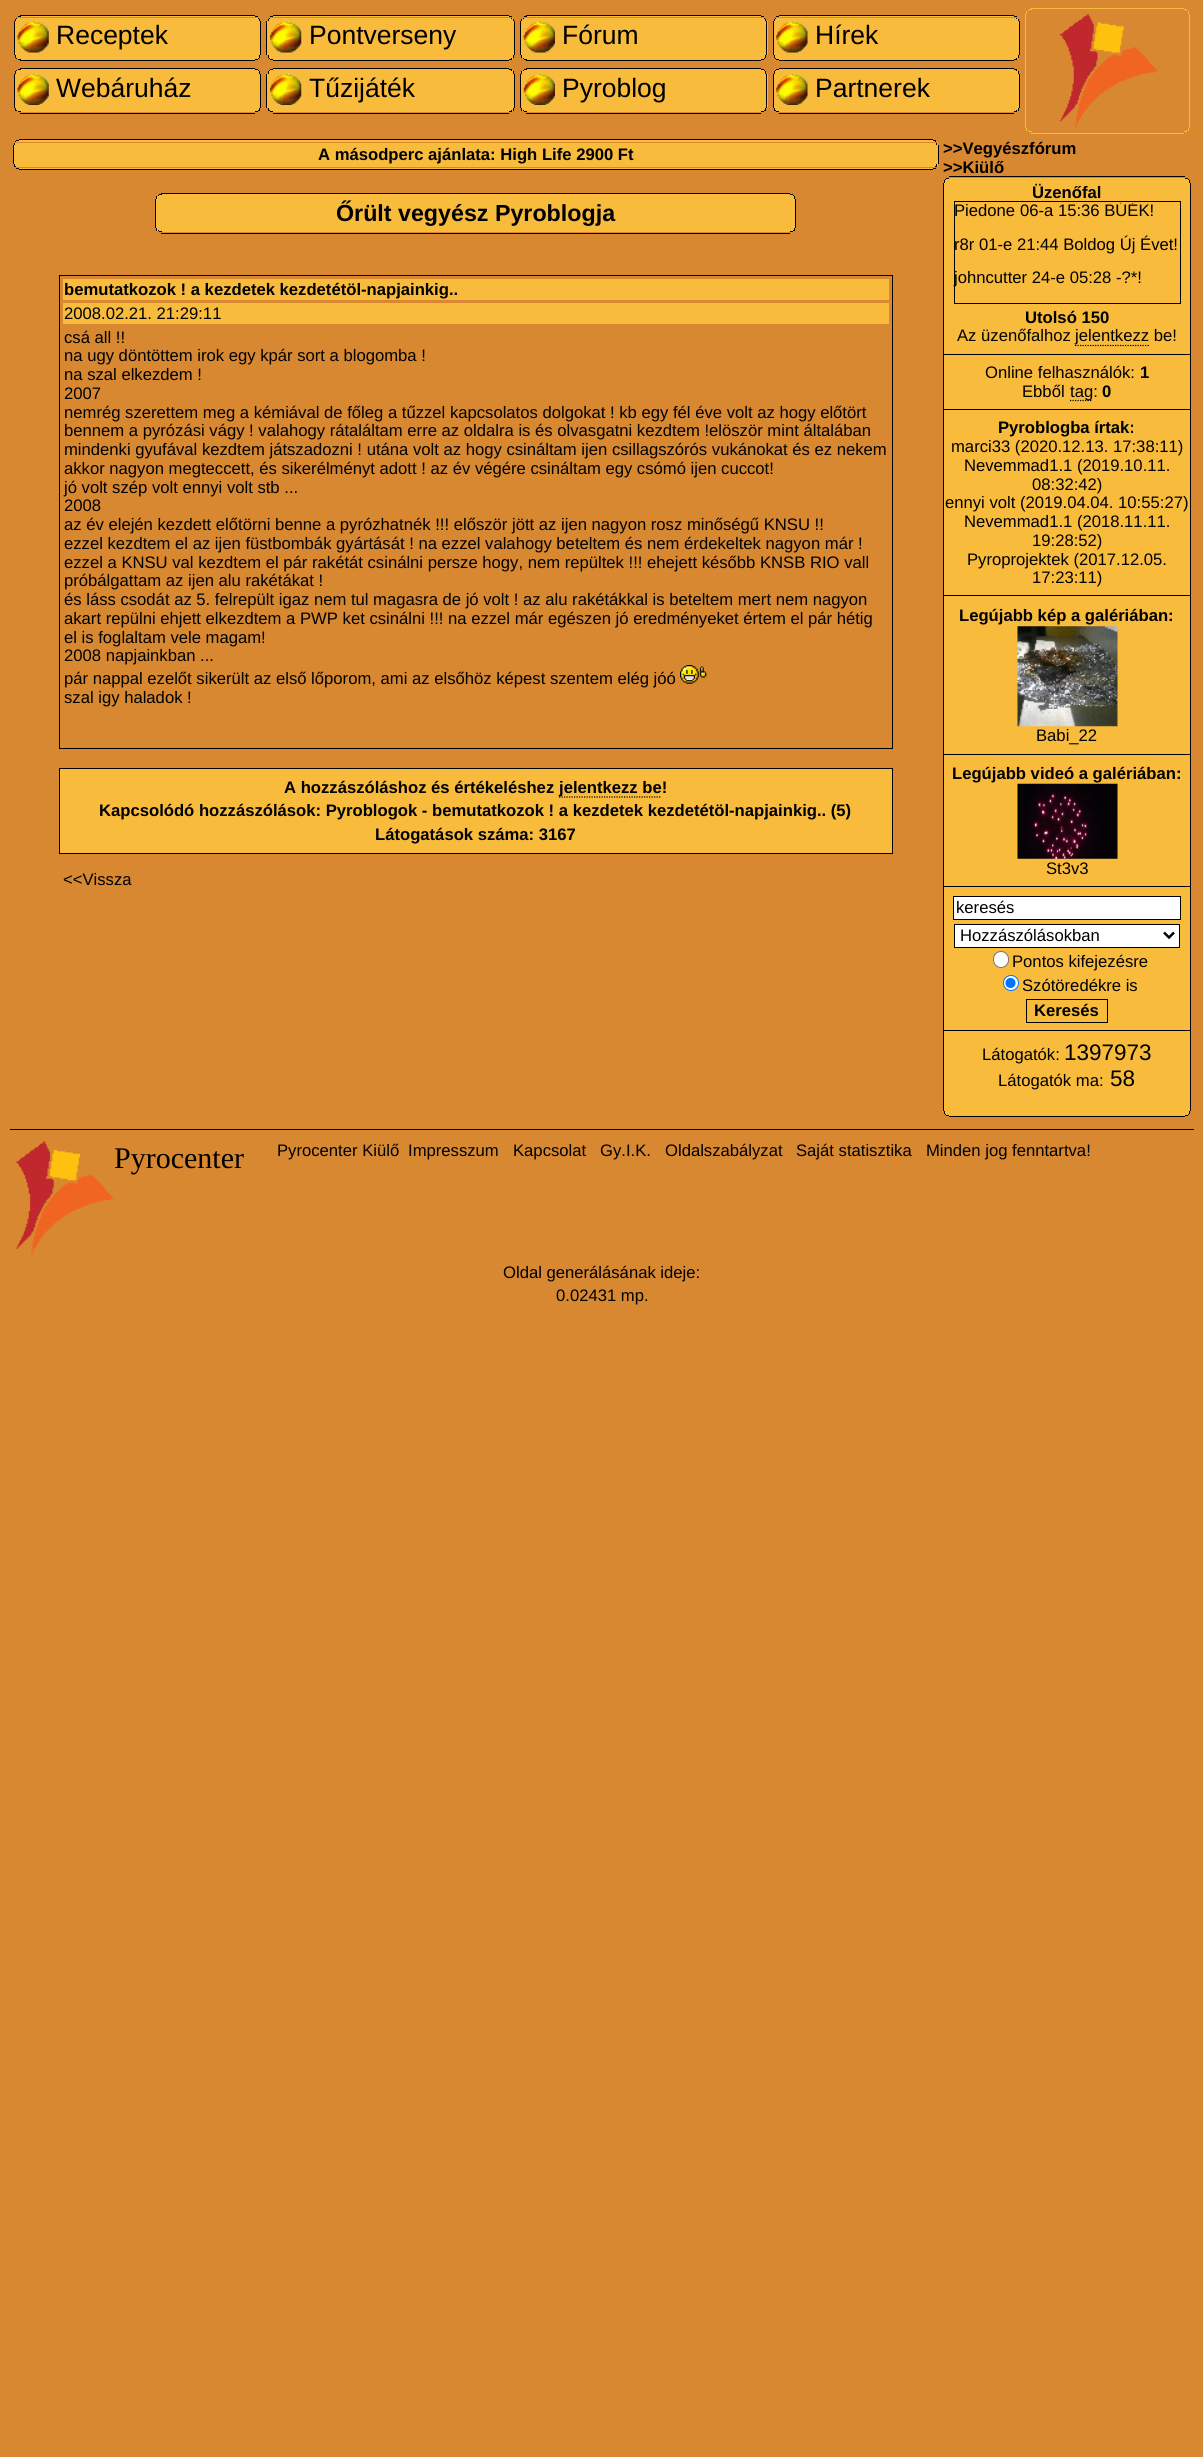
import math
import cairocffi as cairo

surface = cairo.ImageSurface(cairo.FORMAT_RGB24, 1203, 2457)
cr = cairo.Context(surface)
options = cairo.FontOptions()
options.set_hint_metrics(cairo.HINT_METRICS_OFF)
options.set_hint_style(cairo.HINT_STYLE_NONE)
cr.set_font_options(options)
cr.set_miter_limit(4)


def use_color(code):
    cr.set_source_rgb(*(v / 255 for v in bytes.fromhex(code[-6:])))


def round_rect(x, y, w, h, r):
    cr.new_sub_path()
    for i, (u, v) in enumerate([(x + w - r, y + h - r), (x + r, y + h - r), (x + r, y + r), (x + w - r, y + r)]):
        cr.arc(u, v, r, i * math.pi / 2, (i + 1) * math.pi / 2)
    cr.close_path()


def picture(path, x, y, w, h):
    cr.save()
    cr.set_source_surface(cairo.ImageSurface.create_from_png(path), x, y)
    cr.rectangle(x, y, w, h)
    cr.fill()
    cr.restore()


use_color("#d88830")
cr.paint()
use_color("#000000")
cr.rectangle(20, 15, 235, 1)
cr.fill()
use_color("#f9bb3c")
cr.rectangle(18, 16, 240, 1)
cr.fill()
use_color("#000000")
cr.rectangle(255, 16, 3, 1)
cr.fill()
cr.rectangle(18, 16, 3, 1)
cr.fill()
use_color("#f9bb3c")
cr.rectangle(16, 18, 243, 1)
cr.fill()
use_color("#000000")
cr.rectangle(258, 18, 1, 1)
cr.fill()
cr.rectangle(16, 18, 1, 1)
cr.fill()
use_color("#f9bb3c")
cr.rectangle(15, 19, 245, 2)
cr.fill()
use_color("#000000")
cr.rectangle(259, 19, 1, 3)
cr.fill()
cr.rectangle(15, 19, 1, 3)
cr.fill()
use_color("#f9bb3c")
cr.rectangle(15, 21, 245, 37)
cr.fill()
use_color("#000000")
cr.rectangle(260, 21, 1, 34)
cr.fill()
cr.rectangle(14, 21, 1, 34)
cr.fill()
picture("img1.png", 17, 21, 32, 32)
cr.select_font_face("Liberation Sans")
cr.set_font_size(26.5)
cr.move_to(56, 44)
cr.show_text("Receptek")
cr.rectangle(259, 55, 1, 3)
cr.fill()
cr.rectangle(15, 55, 1, 3)
cr.fill()
use_color("#f9bb3c")
cr.rectangle(16, 58, 243, 1)
cr.fill()
use_color("#000000")
cr.rectangle(258, 58, 1, 1)
cr.fill()
cr.rectangle(16, 58, 1, 1)
cr.fill()
use_color("#f9bb3c")
cr.rectangle(18, 59, 240, 1)
cr.fill()
use_color("#000000")
cr.rectangle(255, 59, 3, 1)
cr.fill()
cr.rectangle(18, 59, 3, 1)
cr.fill()
cr.rectangle(20, 60, 235, 1)
cr.fill()
cr.rectangle(273, 15, 236, 1)
cr.fill()
use_color("#f9bb3c")
cr.rectangle(270, 16, 241, 1)
cr.fill()
use_color("#000000")
cr.rectangle(509, 16, 3, 1)
cr.fill()
cr.rectangle(270, 16, 3, 1)
cr.fill()
use_color("#f9bb3c")
cr.rectangle(269, 18, 244, 1)
cr.fill()
use_color("#000000")
cr.rectangle(511, 18, 1, 1)
cr.fill()
cr.rectangle(269, 18, 1, 1)
cr.fill()
use_color("#f9bb3c")
cr.rectangle(268, 19, 246, 2)
cr.fill()
use_color("#000000")
cr.rectangle(513, 19, 1, 3)
cr.fill()
cr.rectangle(268, 19, 1, 3)
cr.fill()
use_color("#f9bb3c")
cr.rectangle(267, 21, 247, 34)
cr.fill()
use_color("#000000")
cr.rectangle(514, 21, 1, 34)
cr.fill()
cr.rectangle(266, 21, 1, 34)
cr.fill()
picture("img2.png", 270, 21, 32, 32)
cr.move_to(309, 44)
cr.show_text("Pontverseny")
use_color("#f9bb3c")
cr.rectangle(268, 55, 246, 3)
cr.fill()
use_color("#000000")
cr.rectangle(513, 55, 1, 3)
cr.fill()
cr.rectangle(268, 55, 1, 3)
cr.fill()
use_color("#f9bb3c")
cr.rectangle(269, 58, 244, 1)
cr.fill()
use_color("#000000")
cr.rectangle(511, 58, 1, 1)
cr.fill()
cr.rectangle(269, 58, 1, 1)
cr.fill()
use_color("#f9bb3c")
cr.rectangle(270, 59, 241, 1)
cr.fill()
use_color("#000000")
cr.rectangle(509, 59, 3, 1)
cr.fill()
cr.rectangle(270, 59, 3, 1)
cr.fill()
cr.rectangle(273, 60, 236, 1)
cr.fill()
cr.rectangle(526, 15, 235, 1)
cr.fill()
use_color("#f9bb3c")
cr.rectangle(524, 16, 240, 1)
cr.fill()
use_color("#000000")
cr.rectangle(761, 16, 3, 1)
cr.fill()
cr.rectangle(524, 16, 3, 1)
cr.fill()
use_color("#f9bb3c")
cr.rectangle(523, 18, 242, 1)
cr.fill()
use_color("#000000")
cr.rectangle(764, 18, 1, 1)
cr.fill()
cr.rectangle(523, 18, 1, 1)
cr.fill()
use_color("#f9bb3c")
cr.rectangle(521, 19, 245, 2)
cr.fill()
use_color("#000000")
cr.rectangle(765, 19, 1, 3)
cr.fill()
cr.rectangle(521, 19, 1, 3)
cr.fill()
use_color("#f9bb3c")
cr.rectangle(521, 21, 247, 34)
cr.fill()
use_color("#000000")
cr.rectangle(766, 21, 1, 34)
cr.fill()
cr.rectangle(520, 21, 1, 34)
cr.fill()
picture("img3.png", 523, 21, 32, 32)
cr.move_to(562, 44)
cr.show_text("Fórum")
use_color("#f9bb3c")
cr.rectangle(521, 55, 245, 3)
cr.fill()
use_color("#000000")
cr.rectangle(765, 55, 1, 3)
cr.fill()
cr.rectangle(521, 55, 1, 3)
cr.fill()
use_color("#f9bb3c")
cr.rectangle(523, 58, 242, 1)
cr.fill()
use_color("#000000")
cr.rectangle(764, 58, 1, 1)
cr.fill()
cr.rectangle(523, 58, 1, 1)
cr.fill()
use_color("#f9bb3c")
cr.rectangle(524, 59, 240, 1)
cr.fill()
use_color("#000000")
cr.rectangle(761, 59, 3, 1)
cr.fill()
cr.rectangle(524, 59, 3, 1)
cr.fill()
cr.rectangle(526, 60, 235, 1)
cr.fill()
cr.rectangle(779, 15, 235, 1)
cr.fill()
use_color("#f9bb3c")
cr.rectangle(776, 16, 240, 1)
cr.fill()
use_color("#000000")
cr.rectangle(1014, 16, 3, 1)
cr.fill()
cr.rectangle(776, 16, 3, 1)
cr.fill()
use_color("#f9bb3c")
cr.rectangle(775, 18, 243, 1)
cr.fill()
use_color("#000000")
cr.rectangle(1016, 18, 1, 1)
cr.fill()
cr.rectangle(775, 18, 1, 1)
cr.fill()
use_color("#f9bb3c")
cr.rectangle(774, 19, 245, 2)
cr.fill()
use_color("#000000")
cr.rectangle(1018, 19, 1, 3)
cr.fill()
cr.rectangle(774, 19, 1, 3)
cr.fill()
use_color("#f9bb3c")
cr.rectangle(774, 21, 245, 37)
cr.fill()
use_color("#000000")
cr.rectangle(1019, 21, 1, 34)
cr.fill()
cr.rectangle(773, 21, 1, 34)
cr.fill()
picture("img4.png", 776, 21, 32, 32)
cr.move_to(815, 44)
cr.show_text("Hírek")
cr.rectangle(1018, 55, 1, 3)
cr.fill()
cr.rectangle(774, 55, 1, 3)
cr.fill()
use_color("#f9bb3c")
cr.rectangle(775, 58, 243, 1)
cr.fill()
use_color("#000000")
cr.rectangle(1016, 58, 1, 1)
cr.fill()
cr.rectangle(775, 58, 1, 1)
cr.fill()
use_color("#f9bb3c")
cr.rectangle(776, 59, 240, 1)
cr.fill()
use_color("#000000")
cr.rectangle(1014, 59, 3, 1)
cr.fill()
cr.rectangle(776, 59, 3, 1)
cr.fill()
cr.rectangle(779, 60, 235, 1)
cr.fill()
use_color("#f9bb3c")
cr.rectangle(1031, 8, 153, 1)
cr.fill()
cr.rectangle(1184, 9, 3, 1)
cr.fill()
cr.rectangle(1029, 9, 3, 1)
cr.fill()
cr.rectangle(1186, 10, 1, 1)
cr.fill()
cr.rectangle(1028, 10, 1, 1)
cr.fill()
cr.rectangle(1188, 11, 1, 3)
cr.fill()
cr.rectangle(1026, 11, 1, 3)
cr.fill()
cr.rectangle(1189, 14, 1, 114)
cr.fill()
cr.rectangle(1025, 14, 1, 114)
cr.fill()
picture("img5.png", 1059, 14, 99, 114)
cr.rectangle(1188, 128, 1, 3)
cr.fill()
cr.rectangle(1026, 128, 1, 3)
cr.fill()
cr.rectangle(1186, 130, 1, 1)
cr.fill()
cr.rectangle(1028, 130, 1, 1)
cr.fill()
cr.rectangle(1184, 131, 3, 1)
cr.fill()
cr.rectangle(1029, 131, 3, 1)
cr.fill()
cr.rectangle(1031, 133, 153, 1)
cr.fill()
use_color("#000000")
cr.rectangle(20, 68, 235, 1)
cr.fill()
use_color("#f9bb3c")
cr.rectangle(18, 69, 240, 1)
cr.fill()
use_color("#000000")
cr.rectangle(255, 69, 3, 1)
cr.fill()
cr.rectangle(18, 69, 3, 1)
cr.fill()
use_color("#f9bb3c")
cr.rectangle(16, 70, 243, 1)
cr.fill()
use_color("#000000")
cr.rectangle(258, 70, 1, 1)
cr.fill()
cr.rectangle(16, 70, 1, 1)
cr.fill()
use_color("#f9bb3c")
cr.rectangle(15, 71, 245, 40)
cr.fill()
use_color("#000000")
cr.rectangle(259, 71, 1, 3)
cr.fill()
cr.rectangle(15, 71, 1, 3)
cr.fill()
cr.rectangle(260, 74, 1, 34)
cr.fill()
cr.rectangle(14, 74, 1, 34)
cr.fill()
picture("img6.png", 17, 73, 32, 32)
cr.move_to(56, 97)
cr.show_text("Webáruház")
cr.rectangle(259, 108, 1, 3)
cr.fill()
cr.rectangle(15, 108, 1, 3)
cr.fill()
cr.rectangle(258, 110, 1, 1)
cr.fill()
cr.rectangle(16, 110, 1, 1)
cr.fill()
use_color("#f9bb3c")
cr.rectangle(18, 111, 240, 1)
cr.fill()
use_color("#000000")
cr.rectangle(255, 111, 3, 1)
cr.fill()
cr.rectangle(18, 111, 3, 1)
cr.fill()
cr.rectangle(20, 113, 235, 1)
cr.fill()
cr.rectangle(273, 68, 236, 1)
cr.fill()
use_color("#f9bb3c")
cr.rectangle(270, 69, 241, 1)
cr.fill()
use_color("#000000")
cr.rectangle(509, 69, 3, 1)
cr.fill()
cr.rectangle(270, 69, 3, 1)
cr.fill()
use_color("#f9bb3c")
cr.rectangle(269, 70, 244, 1)
cr.fill()
use_color("#000000")
cr.rectangle(511, 70, 1, 1)
cr.fill()
cr.rectangle(269, 70, 1, 1)
cr.fill()
use_color("#f9bb3c")
cr.rectangle(268, 71, 246, 3)
cr.fill()
use_color("#000000")
cr.rectangle(513, 71, 1, 3)
cr.fill()
cr.rectangle(268, 71, 1, 3)
cr.fill()
use_color("#f9bb3c")
cr.rectangle(267, 74, 247, 34)
cr.fill()
use_color("#000000")
cr.rectangle(514, 74, 1, 34)
cr.fill()
cr.rectangle(266, 74, 1, 34)
cr.fill()
picture("img7.png", 270, 73, 32, 32)
cr.move_to(309, 97)
cr.show_text("Tűzijáték")
use_color("#f9bb3c")
cr.rectangle(268, 108, 246, 3)
cr.fill()
use_color("#000000")
cr.rectangle(513, 108, 1, 3)
cr.fill()
cr.rectangle(268, 108, 1, 3)
cr.fill()
cr.rectangle(511, 110, 1, 1)
cr.fill()
cr.rectangle(269, 110, 1, 1)
cr.fill()
use_color("#f9bb3c")
cr.rectangle(270, 111, 241, 1)
cr.fill()
use_color("#000000")
cr.rectangle(509, 111, 3, 1)
cr.fill()
cr.rectangle(270, 111, 3, 1)
cr.fill()
cr.rectangle(273, 113, 236, 1)
cr.fill()
cr.rectangle(526, 68, 235, 1)
cr.fill()
use_color("#f9bb3c")
cr.rectangle(524, 69, 240, 1)
cr.fill()
use_color("#000000")
cr.rectangle(761, 69, 3, 1)
cr.fill()
cr.rectangle(524, 69, 3, 1)
cr.fill()
use_color("#f9bb3c")
cr.rectangle(523, 70, 242, 1)
cr.fill()
use_color("#000000")
cr.rectangle(764, 70, 1, 1)
cr.fill()
cr.rectangle(523, 70, 1, 1)
cr.fill()
use_color("#f9bb3c")
cr.rectangle(521, 71, 245, 3)
cr.fill()
use_color("#000000")
cr.rectangle(765, 71, 1, 3)
cr.fill()
cr.rectangle(521, 71, 1, 3)
cr.fill()
use_color("#f9bb3c")
cr.rectangle(521, 74, 247, 34)
cr.fill()
use_color("#000000")
cr.rectangle(766, 74, 1, 34)
cr.fill()
cr.rectangle(520, 74, 1, 34)
cr.fill()
picture("img8.png", 523, 73, 32, 32)
cr.move_to(562, 97)
cr.show_text("Pyroblog")
use_color("#f9bb3c")
cr.rectangle(521, 108, 245, 3)
cr.fill()
use_color("#000000")
cr.rectangle(765, 108, 1, 3)
cr.fill()
cr.rectangle(521, 108, 1, 3)
cr.fill()
cr.rectangle(764, 110, 1, 1)
cr.fill()
cr.rectangle(523, 110, 1, 1)
cr.fill()
use_color("#f9bb3c")
cr.rectangle(524, 111, 240, 1)
cr.fill()
use_color("#000000")
cr.rectangle(761, 111, 3, 1)
cr.fill()
cr.rectangle(524, 111, 3, 1)
cr.fill()
cr.rectangle(526, 113, 235, 1)
cr.fill()
cr.rectangle(779, 68, 235, 1)
cr.fill()
use_color("#f9bb3c")
cr.rectangle(776, 69, 240, 1)
cr.fill()
use_color("#000000")
cr.rectangle(1014, 69, 3, 1)
cr.fill()
cr.rectangle(776, 69, 3, 1)
cr.fill()
use_color("#f9bb3c")
cr.rectangle(775, 70, 243, 1)
cr.fill()
use_color("#000000")
cr.rectangle(1016, 70, 1, 1)
cr.fill()
cr.rectangle(775, 70, 1, 1)
cr.fill()
use_color("#f9bb3c")
cr.rectangle(774, 71, 245, 40)
cr.fill()
use_color("#000000")
cr.rectangle(1018, 71, 1, 3)
cr.fill()
cr.rectangle(774, 71, 1, 3)
cr.fill()
cr.rectangle(1019, 74, 1, 34)
cr.fill()
cr.rectangle(773, 74, 1, 34)
cr.fill()
picture("img9.png", 776, 73, 32, 32)
cr.move_to(815, 97)
cr.show_text("Partnerek")
cr.rectangle(1018, 108, 1, 3)
cr.fill()
cr.rectangle(774, 108, 1, 3)
cr.fill()
cr.rectangle(1016, 110, 1, 1)
cr.fill()
cr.rectangle(775, 110, 1, 1)
cr.fill()
use_color("#f9bb3c")
cr.rectangle(776, 111, 240, 1)
cr.fill()
use_color("#000000")
cr.rectangle(1014, 111, 3, 1)
cr.fill()
cr.rectangle(776, 111, 3, 1)
cr.fill()
cr.rectangle(779, 113, 235, 1)
cr.fill()
cr.rectangle(19, 139, 914, 1)
cr.fill()
use_color("#f9bb3c")
cr.rectangle(16, 140, 919, 1)
cr.fill()
use_color("#000000")
cr.rectangle(933, 140, 3, 1)
cr.fill()
cr.rectangle(16, 140, 3, 1)
cr.fill()
use_color("#f9bb3c")
cr.rectangle(15, 141, 921, 1)
cr.fill()
use_color("#000000")
cr.rectangle(935, 141, 1, 1)
cr.fill()
cr.rectangle(15, 141, 1, 1)
cr.fill()
use_color("#f9bb3c")
cr.rectangle(14, 143, 924, 2)
cr.fill()
use_color("#000000")
cr.rectangle(936, 143, 1, 3)
cr.fill()
cr.rectangle(14, 143, 1, 3)
cr.fill()
use_color("#f9bb3c")
cr.rectangle(14, 145, 924, 22)
cr.fill()
use_color("#000000")
cr.rectangle(938, 145, 1, 19)
cr.fill()
cr.rectangle(13, 145, 1, 19)
cr.fill()
cr.select_font_face("Liberation Sans", cairo.FONT_SLANT_NORMAL, cairo.FONT_WEIGHT_BOLD)
cr.set_font_size(16.65)
cr.move_to(318, 160)
cr.show_text("A másodperc ajánlata: High Life 2900 Ft")
cr.rectangle(936, 164, 1, 3)
cr.fill()
cr.rectangle(14, 164, 1, 3)
cr.fill()
cr.rectangle(935, 166, 1, 1)
cr.fill()
cr.rectangle(15, 166, 1, 1)
cr.fill()
use_color("#f9bb3c")
cr.rectangle(16, 168, 919, 1)
cr.fill()
use_color("#000000")
cr.rectangle(933, 168, 3, 1)
cr.fill()
cr.rectangle(16, 168, 3, 1)
cr.fill()
cr.rectangle(19, 169, 914, 1)
cr.fill()
cr.rectangle(161, 193, 629, 1)
cr.fill()
use_color("#f9bb3c")
cr.rectangle(159, 194, 634, 1)
cr.fill()
use_color("#000000")
cr.rectangle(790, 194, 3, 1)
cr.fill()
cr.rectangle(159, 194, 3, 1)
cr.fill()
use_color("#f9bb3c")
cr.rectangle(158, 195, 636, 1)
cr.fill()
use_color("#000000")
cr.rectangle(793, 195, 1, 1)
cr.fill()
cr.rectangle(158, 195, 1, 1)
cr.fill()
use_color("#f9bb3c")
cr.rectangle(156, 196, 639, 35)
cr.fill()
use_color("#000000")
cr.rectangle(794, 196, 1, 3)
cr.fill()
cr.rectangle(156, 196, 1, 3)
cr.fill()
cr.rectangle(795, 199, 1, 29)
cr.fill()
cr.rectangle(155, 199, 1, 29)
cr.fill()
cr.set_font_size(23.25)
cr.move_to(336, 221)
cr.show_text("Őrült vegyész Pyroblogja")
cr.rectangle(794, 228, 1, 3)
cr.fill()
cr.rectangle(156, 228, 1, 3)
cr.fill()
cr.rectangle(793, 230, 1, 1)
cr.fill()
cr.rectangle(158, 230, 1, 1)
cr.fill()
use_color("#f9bb3c")
cr.rectangle(159, 231, 634, 1)
cr.fill()
use_color("#000000")
cr.rectangle(790, 231, 3, 1)
cr.fill()
cr.rectangle(159, 231, 3, 1)
cr.fill()
cr.rectangle(161, 233, 629, 1)
cr.fill()
cr.rectangle(59.5, 275.5, 833, 473)
cr.set_line_width(1)
cr.stroke()
use_color("#f9bb3c")
cr.rectangle(63, 279, 826, 21)
cr.fill()
cr.set_font_size(16.65)
use_color("#000000")
cr.move_to(64, 295)
cr.show_text("bemutatkozok ! a kezdetek kezdetétöl-napjainkig..")
use_color("#f9bb3c")
cr.rectangle(63, 303, 826, 21)
cr.fill()
cr.select_font_face("Liberation Sans")
use_color("#000000")
cr.move_to(64, 319)
cr.show_text("2008.02.21. 21:29:11")
cr.move_to(64, 343)
cr.show_text("csá all !!")
cr.move_to(64, 361)
cr.show_text("na ugy döntöttem irok egy kpár sort a blogomba !")
cr.move_to(64, 380)
cr.show_text("na szal elkezdem !")
cr.move_to(64, 399)
cr.show_text("2007")
cr.move_to(64, 418)
cr.show_text("nemrég szerettem meg a kémiával de főleg a tűzzel kapcsolatos dolgokat ! kb egy fél éve volt az hogy előtört")
cr.move_to(64, 436)
cr.show_text("bennem a pyrózási vágy ! valahogy rátaláltam erre az oldalra is és olvasgatni kezdtem !elöször mint általában")
cr.move_to(64, 455)
cr.show_text("mindenki gyufával kezdtem játszadozni ! utána volt az hogy csináltam ijen csillagszórós vukánokat és ez nekem")
cr.move_to(64, 474)
cr.show_text("akkor nagyon megteccett, és sikerélményt adott ! az év végére csináltam egy csómó ijen cuccot!")
cr.move_to(64, 493)
cr.show_text("jó volt szép volt ennyi volt stb ...")
cr.move_to(64, 511)
cr.show_text("2008")
cr.move_to(64, 530)
cr.show_text("az év elején kezdett előtörni benne a pyrózhatnék !!! először jött az ijen nagyon rosz minőségű KNSU !!")
cr.move_to(64, 549)
cr.show_text("ezzel kezdtem el az ijen füstbombák gyártását ! na ezzel valahogy beteltem és nem érdekeltek nagyon már !")
cr.move_to(64, 568)
cr.show_text("ezzel a KNSU val kezdtem el pár rakétát csinálni persze hogy, nem repültek !!! ehejett később KNSB RIO vall")
cr.move_to(64, 586)
cr.show_text("próbálgattam az ijen alu rakétákat !")
cr.move_to(64, 605)
cr.show_text("és láss csodát az 5. felrepült igaz nem tul magasra de jó volt ! az alu rakétákkal is beteltem mert nem nagyon")
cr.move_to(64, 624)
cr.show_text("akart repülni ehjett elkezdtem a PWP ket csinálni !!! na ezzel már egészen jó eredményeket értem el")
cr.move_to(808, 624)
cr.show_text("pár hétig")
cr.move_to(64, 643)
cr.show_text("el is foglaltam vele magam!")
cr.move_to(64, 661)
cr.show_text("2008 napjainkban ...")
cr.move_to(64, 684)
cr.show_text("pár nappal ezelőt sikerült az első lőporom, ami az elsőhöz képest szentem elég jóó")
picture("img10.png", 680, 665, 27, 19)
cr.move_to(64, 703)
cr.show_text("szal igy haladok !")
use_color("#f9bb3c")
cr.rectangle(59.5, 768.5, 833, 85)
cr.fill_preserve()
use_color("#000000")
cr.stroke()
cr.select_font_face("Liberation Sans", cairo.FONT_SLANT_NORMAL, cairo.FONT_WEIGHT_BOLD)
cr.move_to(284, 793)
cr.show_text("A hozzászóláshoz és értékeléshez")
cr.new_path()
cr.move_to(559, 797)
cr.line_to(661, 797)
cr.set_line_width(1.2)
cr.set_dash([1.25, 1.25])
cr.stroke()
cr.move_to(559, 793)
cr.show_text("jelentkezz be!")
cr.move_to(99, 816)
cr.show_text("Kapcsolódó hozzászólások: Pyroblogok - bemutatkozok ! a kezdetek kezdetétöl-napjainkig.. (5)")
cr.move_to(375, 840)
cr.show_text("Látogatások száma: 3167")
cr.select_font_face("Liberation Sans")
cr.move_to(63, 885)
cr.show_text("<<Vissza")
cr.select_font_face("Liberation Sans", cairo.FONT_SLANT_NORMAL, cairo.FONT_WEIGHT_BOLD)
cr.move_to(943, 154)
cr.show_text(">>Vegyészfórum")
cr.move_to(943, 173)
cr.show_text(">>Kiülő")
cr.rectangle(949, 176, 236, 1)
cr.fill()
use_color("#f9bb3c")
cr.rectangle(946, 178, 242, 1)
cr.fill()
use_color("#000000")
cr.rectangle(1185, 178, 3, 1)
cr.fill()
cr.rectangle(946, 178, 3, 1)
cr.fill()
use_color("#f9bb3c")
cr.rectangle(945, 179, 244, 1)
cr.fill()
use_color("#000000")
cr.rectangle(1188, 179, 1, 1)
cr.fill()
cr.rectangle(945, 179, 1, 1)
cr.fill()
use_color("#f9bb3c")
cr.rectangle(944, 180, 246, 934)
cr.fill()
use_color("#000000")
cr.rectangle(1189, 180, 1, 3)
cr.fill()
cr.rectangle(944, 180, 1, 3)
cr.fill()
cr.rectangle(1190, 183, 1, 928)
cr.fill()
cr.rectangle(943, 183, 1, 928)
cr.fill()
cr.move_to(1032, 198)
cr.show_text("Üzenőfal")
cr.rectangle(954.5, 201.5, 226, 102)
cr.set_line_width(1)
cr.set_dash([])
cr.stroke()
cr.select_font_face("Liberation Sans")
cr.move_to(954, 216)
cr.show_text("Piedone")
cr.save()
cr.rectangle(955, 203, 225, 100)
cr.clip()
cr.move_to(1020, 216)
cr.show_text("06-a 15:36 BÚÉK!")
cr.restore()
cr.move_to(954, 250)
cr.show_text("r8r 01-e 21:44 Boldog Új Évet!")
cr.move_to(954, 283)
cr.show_text("johncutter 24-e 05:28 -?*!")
cr.select_font_face("Liberation Sans", cairo.FONT_SLANT_NORMAL, cairo.FONT_WEIGHT_BOLD)
cr.move_to(1025, 323)
cr.show_text("Utolsó 150")
cr.select_font_face("Liberation Sans")
cr.move_to(957, 341)
cr.show_text("Az üzenőfalhoz")
cr.new_path()
cr.move_to(1075, 345.5)
cr.line_to(1149, 345.5)
cr.set_line_width(1.2)
cr.set_dash([1.25, 1.25])
cr.stroke()
cr.move_to(1075, 341)
cr.show_text("jelentkezz be!")
cr.rectangle(944, 354, 246, 1)
cr.fill()
cr.move_to(985, 378)
cr.show_text("Online felhasználók:")
cr.select_font_face("Liberation Sans", cairo.FONT_SLANT_NORMAL, cairo.FONT_WEIGHT_BOLD)
cr.move_to(1140, 378)
cr.show_text("1")
cr.select_font_face("Liberation Sans")
cr.move_to(1022, 397)
cr.show_text("Ebből")
cr.new_path()
cr.move_to(1070, 400.5)
cr.line_to(1092.5, 400.5)
cr.stroke()
cr.move_to(1070, 397)
cr.show_text("tag:")
cr.select_font_face("Liberation Sans", cairo.FONT_SLANT_NORMAL, cairo.FONT_WEIGHT_BOLD)
cr.move_to(1102, 397)
cr.show_text("0")
cr.rectangle(944, 409, 246, 1)
cr.fill()
cr.move_to(998, 433)
cr.show_text("Pyroblogba írtak:")
cr.select_font_face("Liberation Sans")
cr.move_to(951, 452)
cr.show_text("marci33 (2020.12.13. 17:38:11)")
cr.move_to(964, 471)
cr.show_text("Nevemmad1.1 (2019.10.11.")
cr.move_to(1032, 490)
cr.show_text("08:32:42)")
cr.move_to(945, 508)
cr.show_text("ennyi volt (2019.04.04. 10:55:27)")
cr.move_to(964, 527)
cr.show_text("Nevemmad1.1 (2018.11.11.")
cr.move_to(1032, 546)
cr.show_text("19:28:52)")
cr.move_to(967, 565)
cr.show_text("Pyroprojektek (2017.12.05.")
cr.move_to(1032, 583)
cr.show_text("17:23:11)")
cr.rectangle(944, 595, 246, 1)
cr.fill()
cr.select_font_face("Liberation Sans", cairo.FONT_SLANT_NORMAL, cairo.FONT_WEIGHT_BOLD)
cr.move_to(959, 621)
cr.show_text("Legújabb kép a galériában:")
picture("img11.png", 1017, 626, 101, 101)
cr.select_font_face("Liberation Sans")
cr.move_to(1036, 741)
cr.show_text("Babi_22")
cr.rectangle(944, 754, 246, 1)
cr.fill()
cr.select_font_face("Liberation Sans", cairo.FONT_SLANT_NORMAL, cairo.FONT_WEIGHT_BOLD)
cr.move_to(952, 779)
cr.show_text("Legújabb videó a galériában:")
picture("img12.png", 1017, 783, 101, 76)
cr.select_font_face("Liberation Sans")
cr.move_to(1046, 874)
cr.show_text("St3v3")
cr.rectangle(944, 886, 246, 1)
cr.fill()
use_color("#ffffff")
cr.rectangle(953.5, 896.5, 227, 23)
cr.fill_preserve()
use_color("#000000")
cr.set_line_width(1)
cr.set_dash([])
cr.stroke()
cr.move_to(956, 913)
cr.show_text("keresés")
use_color("#ffffff")
cr.rectangle(954.5, 924.5, 225, 23)
cr.fill_preserve()
use_color("#000000")
cr.stroke()
cr.new_path()
cr.move_to(1164, 932.5)
cr.line_to(1169, 937.5)
cr.line_to(1174, 932.5)
cr.set_line_width(2.5)
cr.stroke()
cr.move_to(960, 941)
cr.show_text("Hozzászólásokban")
use_color("#ffffff")
round_rect(993.5, 951.5, 15, 16, 7.5)
cr.fill_preserve()
use_color("#767676")
cr.set_line_width(1)
cr.stroke()
use_color("#000000")
cr.move_to(1012, 967)
cr.show_text("Pontos kifejezésre")
use_color("#ffffff")
cr.new_path()
cr.arc(1011, 983, 7.5, 0, 2 * math.pi)
cr.fill_preserve()
use_color("#0075ff")
cr.stroke()
cr.arc(1010.5, 983, 5, 0, 2 * math.pi)
cr.fill()
use_color("#000000")
cr.move_to(1022, 991)
cr.show_text("Szótöredékre is")
cr.rectangle(1026.5, 999.5, 81, 23)
cr.stroke()
cr.select_font_face("Liberation Sans", cairo.FONT_SLANT_NORMAL, cairo.FONT_WEIGHT_BOLD)
cr.move_to(1034, 1016)
cr.show_text("Keresés")
cr.rectangle(944, 1030, 246, 1)
cr.fill()
cr.select_font_face("Liberation Sans")
cr.move_to(982, 1060)
cr.show_text("Látogatók:")
cr.set_font_size(22.5)
cr.move_to(1064, 1060)
cr.show_text("1397973")
cr.set_font_size(16.65)
cr.move_to(998, 1086)
cr.show_text("Látogatók ma:")
cr.set_font_size(22.5)
cr.move_to(1110, 1086)
cr.show_text("58")
cr.rectangle(1189, 1111, 1, 3)
cr.fill()
cr.rectangle(944, 1111, 1, 3)
cr.fill()
use_color("#f9bb3c")
cr.rectangle(945, 1114, 244, 1)
cr.fill()
use_color("#000000")
cr.rectangle(1188, 1114, 1, 1)
cr.fill()
cr.rectangle(945, 1114, 1, 1)
cr.fill()
use_color("#f9bb3c")
cr.rectangle(946, 1115, 242, 1)
cr.fill()
use_color("#000000")
cr.rectangle(1185, 1115, 3, 1)
cr.fill()
cr.rectangle(946, 1115, 3, 1)
cr.fill()
cr.rectangle(949, 1116, 236, 1)
cr.fill()
cr.rectangle(10, 1129, 1184, 1)
cr.fill()
picture("img13.png", 16, 1141, 98, 114)
cr.select_font_face("Liberation Serif")
cr.set_font_size(30)
cr.move_to(114, 1168)
cr.show_text("Pyrocenter")
cr.select_font_face("Liberation Sans")
cr.set_font_size(16.65)
cr.move_to(277, 1156)
cr.show_text("Pyrocenter Kiülő")
cr.move_to(408, 1156)
cr.show_text("Impresszum")
cr.move_to(513, 1156)
cr.show_text("Kapcsolat")
cr.move_to(600, 1156)
cr.show_text("Gy.I.K.")
cr.move_to(665, 1156)
cr.show_text("Oldalszabályzat")
cr.move_to(796, 1156)
cr.show_text("Saját statisztika")
cr.move_to(926, 1156)
cr.show_text("Minden jog fenntartva!")
cr.move_to(503, 1278)
cr.show_text("Oldal generálásának ideje:")
cr.move_to(556, 1301)
cr.show_text("0.02431 mp.")
surface.write_to_png("result.png")
